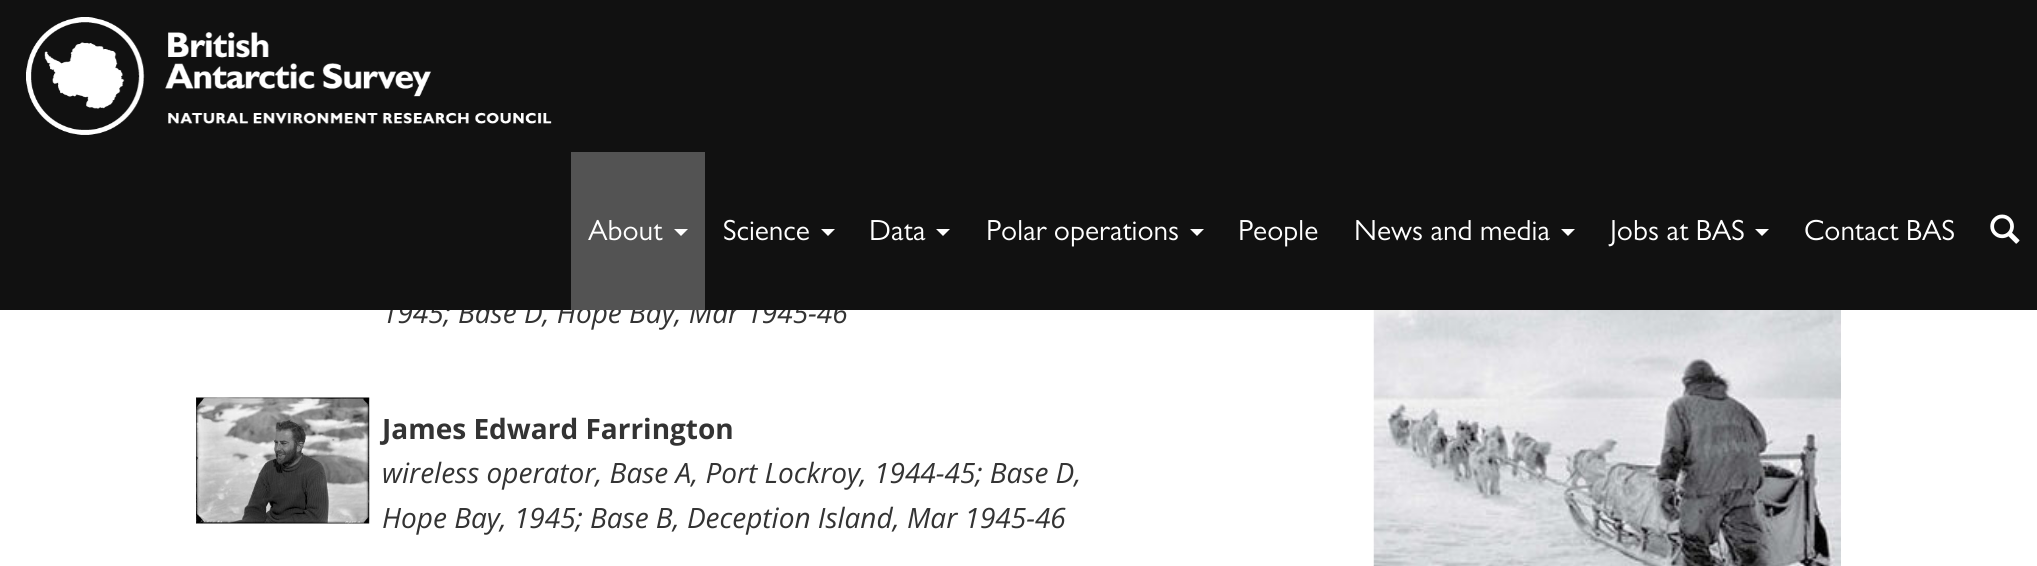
import math
import cairocffi as cairo

surface = cairo.ImageSurface(cairo.FORMAT_RGB24, 2037, 566)
cr = cairo.Context(surface)
options = cairo.FontOptions()
options.set_hint_metrics(cairo.HINT_METRICS_OFF)
options.set_hint_style(cairo.HINT_STYLE_NONE)
cr.set_font_options(options)
cr.set_miter_limit(4)


def use_color(code):
    cr.set_source_rgb(*(v / 255 for v in bytes.fromhex(code[-6:])))


def picture(path, x, y, w, h):
    cr.save()
    cr.set_source_surface(cairo.ImageSurface.create_from_png(path), x, y)
    cr.rectangle(x, y, w, h)
    cr.fill()
    cr.restore()


use_color("#ffffff")
cr.paint()
cr.select_font_face("Open Sans", cairo.FONT_SLANT_ITALIC)
cr.set_font_size(28)
use_color("#333333")
cr.move_to(382, 323)
cr.show_text("1945; Base D, Hope Bay, Mar 1945-46")
use_color("#111111")
cr.rectangle(0, 0, 2037, 310)
cr.fill()
picture("img1.png", 26, 17, 526, 118)
use_color("#535353")
cr.rectangle(571, 152, 134, 158)
cr.fill()
cr.select_font_face("Gill Sans")
cr.set_font_size(29.25)
use_color("#ffffff")
cr.move_to(588, 240)
cr.show_text("About")
cr.new_path()
cr.move_to(674, 229)
cr.line_to(688, 229)
cr.line_to(681, 236)
cr.close_path()
cr.fill()
cr.move_to(723, 240)
cr.show_text("Science")
cr.new_path()
cr.move_to(821, 229)
cr.line_to(835, 229)
cr.line_to(828, 236)
cr.close_path()
cr.fill()
cr.move_to(869, 240)
cr.show_text("Data")
cr.new_path()
cr.move_to(936, 229)
cr.line_to(950, 229)
cr.line_to(943, 236)
cr.close_path()
cr.fill()
cr.move_to(986, 240)
cr.show_text("Polar operations")
cr.new_path()
cr.move_to(1190, 229)
cr.line_to(1204, 229)
cr.line_to(1197, 236)
cr.close_path()
cr.fill()
cr.move_to(1238, 240)
cr.show_text("People")
cr.move_to(1354, 240)
cr.show_text("News and media")
cr.new_path()
cr.move_to(1561, 229)
cr.line_to(1575, 229)
cr.line_to(1568, 236)
cr.close_path()
cr.fill()
cr.move_to(1610, 240)
cr.show_text("Jobs at BAS")
cr.new_path()
cr.move_to(1755, 229)
cr.line_to(1769, 229)
cr.line_to(1762, 236)
cr.close_path()
cr.fill()
cr.move_to(1804, 240)
cr.show_text("Contact BAS")
picture("img2.png", 1990, 214, 30, 30)
picture("img3.png", 196, 397, 174, 127)
cr.select_font_face("Open Sans", cairo.FONT_SLANT_NORMAL, cairo.FONT_WEIGHT_BOLD)
cr.set_font_size(28)
use_color("#333333")
cr.move_to(382, 439)
cr.show_text("James Edward Farrington")
cr.select_font_face("Open Sans", cairo.FONT_SLANT_ITALIC)
cr.move_to(382, 483)
cr.show_text("wireless operator, Base A, Port Lockroy, 1944-45; Base D,")
cr.move_to(382, 528)
cr.show_text("Hope Bay, 1945; Base B, Deception Island, Mar 1945-46")
picture("img4.png", 1373, 310, 468, 256)
surface.write_to_png("result.png")
